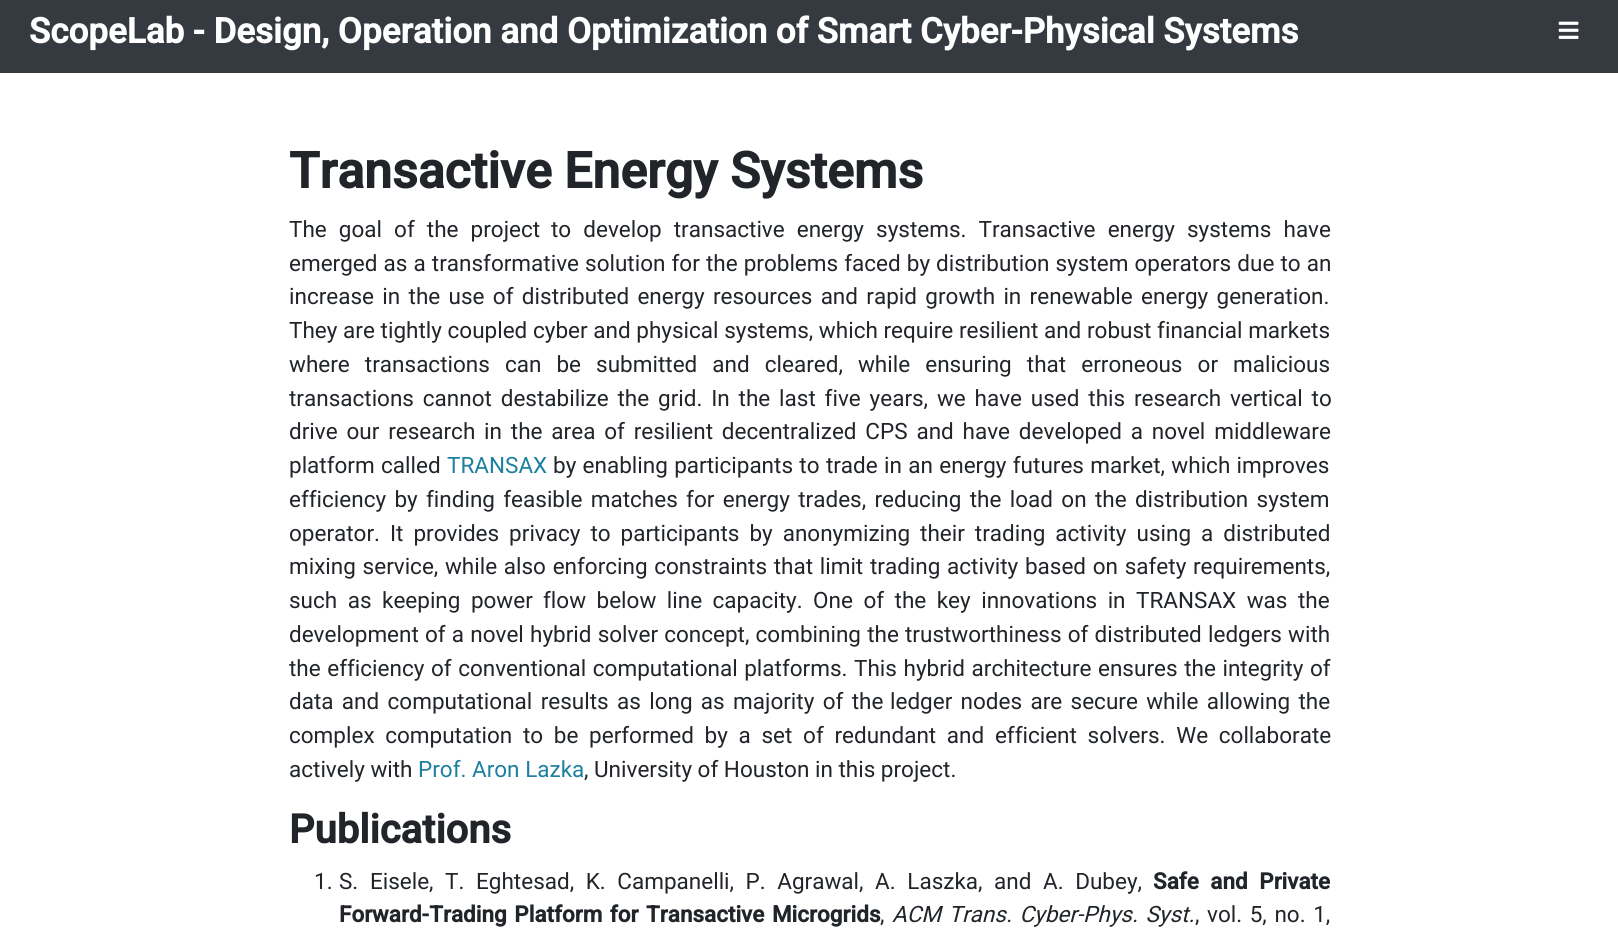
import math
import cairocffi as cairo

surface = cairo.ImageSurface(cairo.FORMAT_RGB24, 1618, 943)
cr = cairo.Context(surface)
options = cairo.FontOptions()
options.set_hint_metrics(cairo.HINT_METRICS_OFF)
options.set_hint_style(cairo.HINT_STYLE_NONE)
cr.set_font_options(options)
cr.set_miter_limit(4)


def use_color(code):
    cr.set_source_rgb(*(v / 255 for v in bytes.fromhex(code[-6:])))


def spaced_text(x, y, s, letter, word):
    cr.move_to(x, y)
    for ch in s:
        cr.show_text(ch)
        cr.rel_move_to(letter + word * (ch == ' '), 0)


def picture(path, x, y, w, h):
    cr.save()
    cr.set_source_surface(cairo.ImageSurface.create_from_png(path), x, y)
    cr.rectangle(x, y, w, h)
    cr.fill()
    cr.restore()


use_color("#ffffff")
cr.paint()
use_color("#343a40")
cr.rectangle(0, 0, 1618, 73)
cr.fill()
cr.select_font_face("Roboto", cairo.FONT_SLANT_NORMAL, cairo.FONT_WEIGHT_BOLD)
cr.set_font_size(35)
use_color("#ffffff")
cr.move_to(29, 43)
cr.show_text("ScopeLab - Design, Operation and Optimization of Smart Cyber-Physical Systems")
picture("img1.png", 1558, 21, 21, 18)
cr.set_font_size(50)
use_color("#212529")
cr.move_to(289, 188)
cr.show_text("Transactive Energy Systems")
cr.select_font_face("Roboto")
cr.set_font_size(22.5)
spaced_text(289, 237, "The goal of the project", 0, 6.5)
spaced_text(551, 237, "to develop transactive energy systems. Transactive energy systems have", 0, 6.5)
spaced_text(289, 271, "emerged as a transformative solution for the problems faced by distribution system operators due to an", 0, 0.5)
spaced_text(289, 304, "increase in the use of distributed energy resources and rapid growth in renewable energy generation.", 0, 2.75)
spaced_text(289, 338, "They are tightly coupled cyber and physical systems, which require resilient and robust financial markets", 0, 0.1)
spaced_text(289, 372, "where transactions can be submitted and cleared, while ensuring that erroneous or malicious", 0, 9.5)
spaced_text(289, 406, "transactions cannot destabilize the grid. In the last five years, we have used this research vertical to", 0, 3.25)
spaced_text(289, 439, "drive our research in the area of resilient decentralized CPS and have developed a novel middleware", 0, 3.25)
spaced_text(289, 473, "platform called", 0, 0.75)
use_color("#1d809f")
cr.move_to(447, 473)
cr.show_text("TRANSAX")
use_color("#212529")
spaced_text(553, 473, "by enabling participants to trade in an energy futures market, which improves", 0, 0.75)
spaced_text(289, 507, "efficiency by finding feasible matches for energy trades, reducing the load on the distribution system", 0, 2.75)
spaced_text(289, 541, "operator. It provides privacy to participants by anonymizing their trading activity using a distributed", 0, 4.4)
spaced_text(289, 574, "mixing service, while also enforcing constraints that limit trading activity based on safety requirements,", 0, 1.1)
spaced_text(289, 608, "such as keeping power", 0, 4.9)
spaced_text(543, 608, "flow below line capacity. One of the key innovations in TRANSAX was the", 0, 4.9)
spaced_text(289, 642, "development of a novel hybrid solver concept, combining the trustworthiness of distributed ledgers with", 0, 0.6)
spaced_text(289, 676, "the efficiency of conventional computational platforms. This hybrid architecture ensures the integrity of", 0, 1)
spaced_text(289, 709, "data and computational results as long as majority of the", 0, 2.75)
spaced_text(890, 709, "ledger nodes are secure while allowing the", 0, 2.75)
spaced_text(289, 743, "complex computation to be performed by a set of redundant and efficient solvers. We collaborate", 0, 5.1)
cr.move_to(289, 777)
cr.show_text("actively with")
use_color("#1d809f")
cr.move_to(418, 777)
cr.show_text("Prof. Aron Lazka")
use_color("#212529")
cr.move_to(584, 777)
cr.show_text(", University of Houston in this project.")
cr.select_font_face("Roboto", cairo.FONT_SLANT_NORMAL, cairo.FONT_WEIGHT_BOLD)
cr.set_font_size(40)
cr.move_to(289, 843)
cr.show_text("Publications")
cr.select_font_face("Roboto")
cr.set_font_size(22.5)
cr.move_to(314, 889)
cr.show_text("1.")
spaced_text(339, 889, "S. Eisele, T. Eghtesad, K. Campanelli, P. Agrawal, A. Laszka, and A. Dubey,", 0, 6)
cr.select_font_face("Roboto", cairo.FONT_SLANT_NORMAL, cairo.FONT_WEIGHT_BOLD)
spaced_text(1153, 889, "Safe and Private", 0, 6)
spaced_text(339, 922, "Forward-Trading Platform for Transactive Microgrids", 0, 2)
cr.select_font_face("Roboto")
cr.move_to(880, 922)
cr.show_text(",")
cr.select_font_face("Roboto", cairo.FONT_SLANT_ITALIC)
spaced_text(892, 922, "ACM Trans. Cyber-Phys. Syst.", 0, 2)
cr.select_font_face("Roboto")
spaced_text(1195, 922, ", vol. 5, no. 1,", 0, 2)
surface.write_to_png("result.png")
